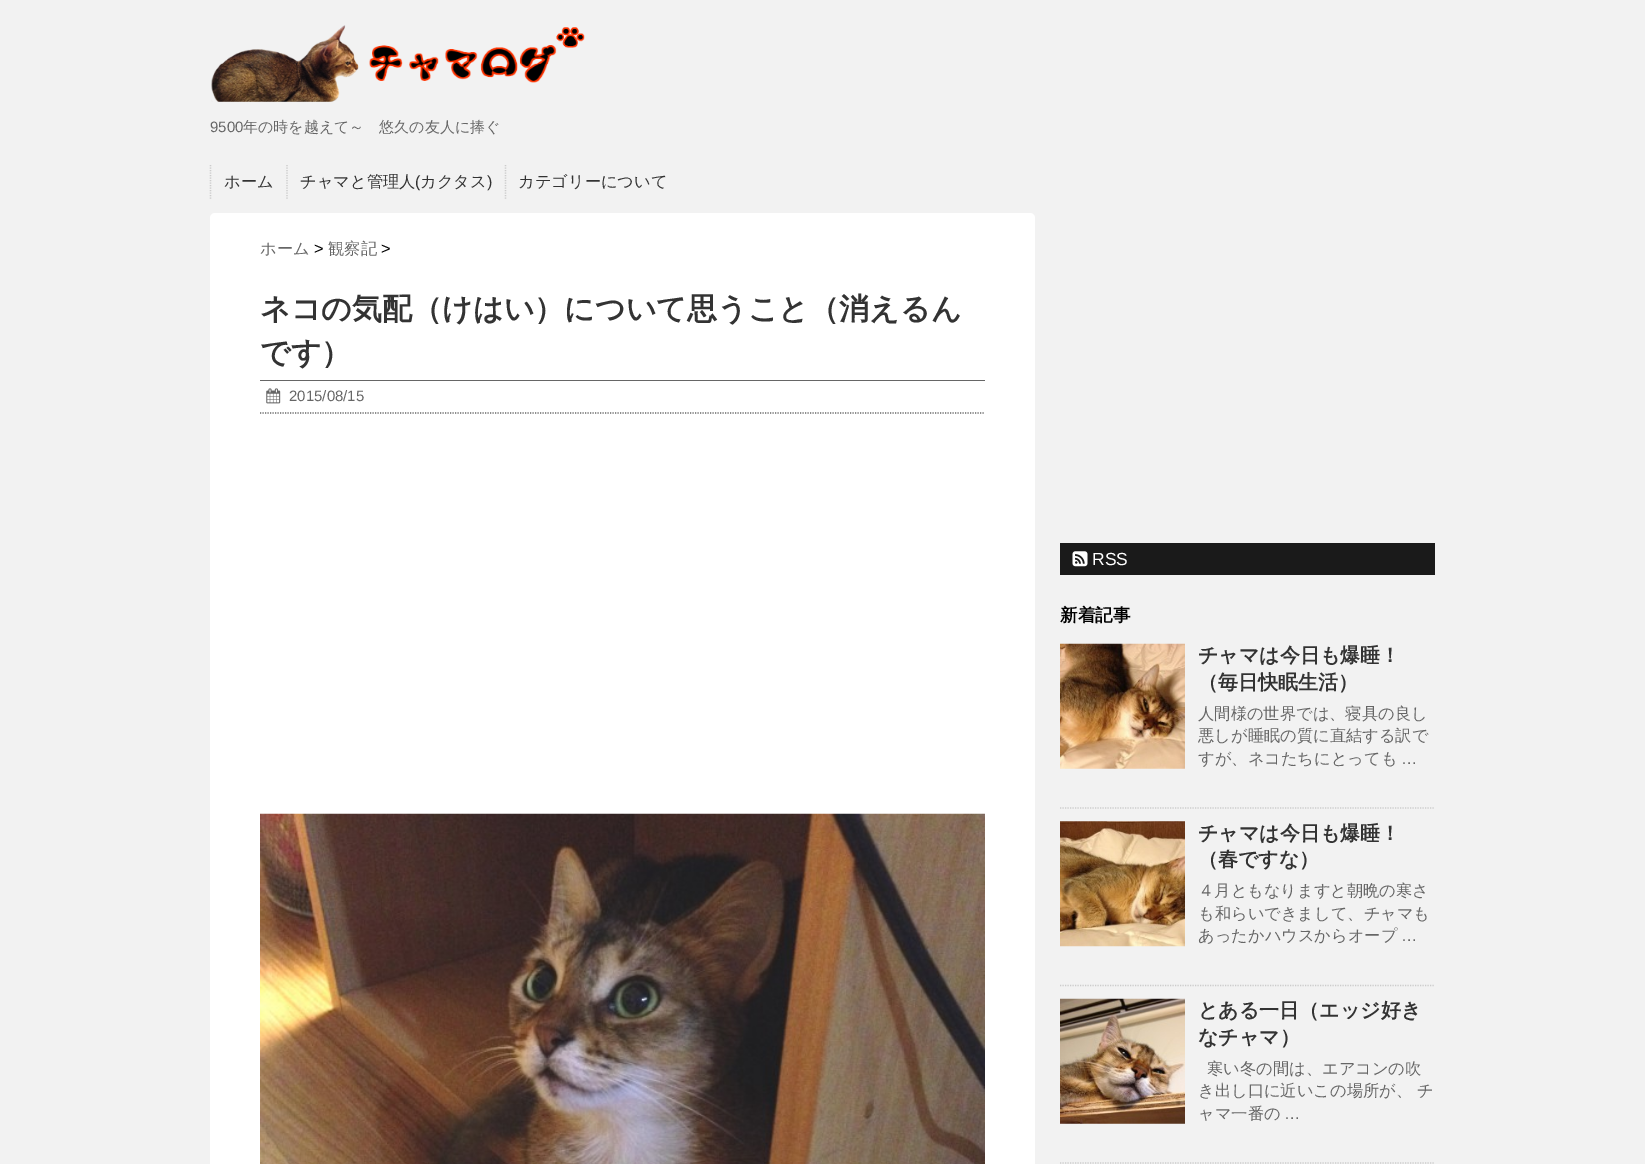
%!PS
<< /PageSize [1645 1164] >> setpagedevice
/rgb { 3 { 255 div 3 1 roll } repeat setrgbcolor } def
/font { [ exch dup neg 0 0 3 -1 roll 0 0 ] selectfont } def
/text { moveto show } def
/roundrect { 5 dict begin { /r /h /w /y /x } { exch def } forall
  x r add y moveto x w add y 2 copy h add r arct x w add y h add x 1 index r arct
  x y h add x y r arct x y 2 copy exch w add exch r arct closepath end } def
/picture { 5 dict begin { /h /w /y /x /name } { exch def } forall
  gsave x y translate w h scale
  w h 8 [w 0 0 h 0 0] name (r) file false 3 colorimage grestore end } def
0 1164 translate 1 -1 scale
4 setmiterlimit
242 242 242 rgb
0 0 1645 1164 rectfill
(img_01.rgb) 211 25 374 77 picture
204 204 204 rgb
1.2 setlinewidth
[1.25 1.25] 0 setdash
210.5 165 moveto 0 35 rlineto stroke
287 165 moveto 0 35 rlineto stroke
505.5 165 moveto 0 35 rlineto stroke
255 255 255 rgb
210 213 825 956 5 roundrect fill
102 102 102 rgb
260 380 725 1 rectfill
260 413 moveto 725 0 rlineto stroke
(img_02.rgb) 266 388 15 16 picture
(img_03.rgb) 260 813 725 351 picture
26 26 26 rgb
1060 543 375 32 rectfill
(img_04.rgb) 1072 551 16 16 picture
204 204 204 rgb
1060 808 moveto 375 0 rlineto stroke
(img_05.rgb) 1060 643 125 126 picture
1060 985.5 moveto 375 0 rlineto stroke
(img_06.rgb) 1060 821 125 126 picture
1060 1163 moveto 375 0 rlineto stroke
(img_07.rgb) 1060 998 125 126 picture
/LiberationSans-Regular 15 font
102 102 102 rgb
(9500) 210 132 text
/WenQuanYiZenHei-Medium 15 font
(年の時を越えて～　悠久の友人に捧ぐ) 243 132 text
/WenQuanYiZenHei-Medium 16.25 font
51 51 51 rgb
(ホーム) 224 187 text
(チャマと管理人) 300 187 text
/LiberationSans-Regular 16.25 font
(\() 415 187 text
/WenQuanYiZenHei-Medium 16.25 font
(カクタス) 420 187 text
/LiberationSans-Regular 16.25 font
(\)) 487 187 text
/WenQuanYiZenHei-Medium 16.25 font
(カテゴリーについて) 518 187 text
102 102 102 rgb
(ホーム) 260 254 text
/LiberationSans-Regular 16.25 font
0 0 0 rgb
(>) 314 254 text
/WenQuanYiZenHei-Medium 16.25 font
102 102 102 rgb
(観察記) 328 254 text
/LiberationSans-Regular 16.25 font
0 0 0 rgb
(>) 381 254 text
/WenQuanYiZenHei-Bold 30 font
51 51 51 rgb
(ネコの気配（けはい）について思うこと（消えるん) 260 319 text
(です）) 260 363 text
/LiberationSans-Regular 15 font
102 102 102 rgb
(2015/08/15) 289 401 text
/LiberationSans-Regular 17.5 font
255 255 255 rgb
(RSS) 1092 565 text
/WenQuanYiZenHei-Bold 17.5 font
0 0 0 rgb
(新着記事) 1060 621 text
/WenQuanYiZenHei-Bold 20 font
51 51 51 rgb
(チャマは今日も爆睡！) 1198 662 text
(（毎日快眠生活）) 1198 689 text
/WenQuanYiZenHei-Medium 16.25 font
102 102 102 rgb
(人間様の世界では、寝具の良し) 1198 719 text
(悪しが睡眠の質に直結する訳で) 1198 741 text
(すが、ネコたちにとっても) 1198 764 text
/LiberationSans-Regular 16.25 font
(…) 1401 764 text
/WenQuanYiZenHei-Bold 20 font
51 51 51 rgb
(チャマは今日も爆睡！) 1198 840 text
(（春ですな）) 1198 866 text
/WenQuanYiZenHei-Medium 16.25 font
102 102 102 rgb
(４月ともなりますと朝晩の寒さ) 1198 896 text
(も和らいできまして、チャマも) 1198 919 text
(あったかハウスからオープ) 1198 941 text
/LiberationSans-Regular 16.25 font
(…) 1401 941 text
/WenQuanYiZenHei-Bold 20 font
51 51 51 rgb
(とある一日（エッジ好き) 1198 1017 text
(なチャマ）) 1198 1044 text
/WenQuanYiZenHei-Medium 16.25 font
102 102 102 rgb
(寒い冬の間は、エアコンの吹) 1207 1074 text
(き出し口に近いこの場所が、 チ) 1198 1096 text
(ャマ一番の) 1198 1119 text
/LiberationSans-Regular 16.25 font
(…) 1284 1119 text
showpage
